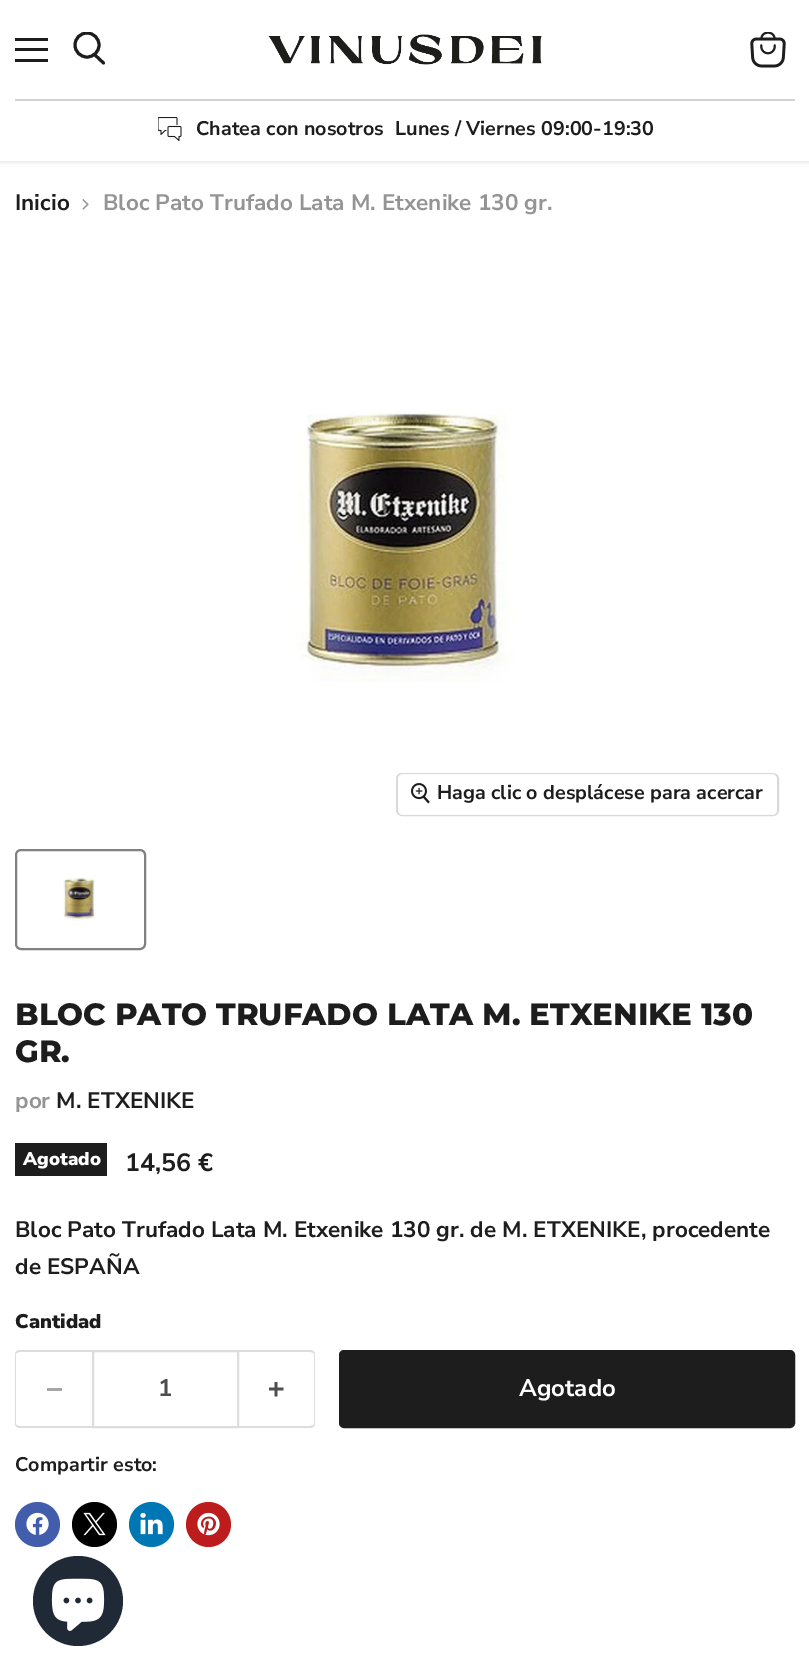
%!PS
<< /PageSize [809 1676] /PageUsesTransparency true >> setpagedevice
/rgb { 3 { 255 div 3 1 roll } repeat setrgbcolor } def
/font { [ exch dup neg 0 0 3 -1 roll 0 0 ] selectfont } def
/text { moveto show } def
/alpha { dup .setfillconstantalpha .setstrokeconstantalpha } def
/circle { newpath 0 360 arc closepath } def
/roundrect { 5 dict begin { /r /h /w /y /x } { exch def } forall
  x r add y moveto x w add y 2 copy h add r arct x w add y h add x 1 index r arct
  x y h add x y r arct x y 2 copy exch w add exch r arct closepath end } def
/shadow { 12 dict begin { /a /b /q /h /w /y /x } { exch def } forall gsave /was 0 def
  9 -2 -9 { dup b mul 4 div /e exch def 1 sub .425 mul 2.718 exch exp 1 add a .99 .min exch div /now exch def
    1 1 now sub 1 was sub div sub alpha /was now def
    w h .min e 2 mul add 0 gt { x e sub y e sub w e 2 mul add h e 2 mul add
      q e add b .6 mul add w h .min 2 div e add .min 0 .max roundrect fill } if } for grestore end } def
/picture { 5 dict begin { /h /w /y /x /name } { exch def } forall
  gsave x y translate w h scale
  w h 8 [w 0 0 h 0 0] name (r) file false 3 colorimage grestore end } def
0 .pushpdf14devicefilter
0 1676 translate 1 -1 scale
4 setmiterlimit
255 255 255 rgb
0 0 809 1676 rectfill
128 128 128 rgb
0 2 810 160 0 3 0.25 shadow
255 255 255 rgb
0 0 809 161 rectfill
29 29 29 rgb
15 38 33 3 rectfill
15 48 33 3 rectfill
15 59 33 3 rectfill
3 setlinewidth
1 setlinecap
103.5 63 moveto -8.5 -8 rlineto stroke
gsave
72 32 35 36 rectclip
0 setlinecap
87 45 12 circle stroke
grestore
(img_01.rgb) 750 32 36 36 picture
(img_02.rgb) 268 34 274 31 picture
210 210 210 rgb
15 99 780 2 rectfill
(img_03.rgb) 158 117 24 24 picture
(img_04.rgb) 82 198 7 12 picture
(img_05.rgb) 296 406 219 276 picture
217 217 217 rgb
2 setlinewidth
0 setlinecap
397 774 381 41 5 roundrect stroke
0.9 alpha
255 255 255 rgb
398 774 379 41 5 roundrect fill
1 alpha
(img_06.rgb) 411 783 19 21 picture
129 129 129 rgb
16 850 129 99 5 roundrect stroke
(img_07.rgb) 63 875 33 46 picture
29 29 29 rgb
15 1143 92 33 rectfill
221 221 221 rgb
20 1350 moveto 72 0 rlineto 0 78 rlineto -72 0 rlineto -3 0 -5 -2 -5 -4 rcurveto 0 -70 rlineto 0 -2 2 -4 5 -4 rcurveto closepath 20 1352 moveto 72 0 rlineto 0 74 rlineto -72 0 rlineto -2 0 -4 -1 -4 -2 rcurveto 0 -70 rlineto 0 -1 2 -2 4 -2 rcurveto closepath eofill
166 166 166 rgb
47 1388 15 3 rectfill
221 221 221 rgb
93 1351 145 76 rectstroke
238 1350 moveto 72 0 rlineto 3 0 5 2 5 4 rcurveto 0 70 rlineto 0 2 -2 4 -5 4 rcurveto -72 0 rlineto closepath 238 1352 moveto 72 0 rlineto 2 0 4 1 4 2 rcurveto 0 70 rlineto 0 1 -2 2 -4 2 rcurveto -72 0 rlineto closepath eofill
(img_08.rgb) 269 1382 15 15 picture
29 29 29 rgb
340 1351 454 76 4 roundrect gsave fill grestore
stroke
66 93 171 rgb
37.5 1524.5 22.5 circle fill
(img_09.rgb) 26 1512 23 23 picture
0 0 0 rgb
94.5 1524.5 22.5 circle fill
(img_10.rgb) 83 1512 23 24 picture
0 119 181 rgb
151.5 1524.5 22.5 circle fill
(img_11.rgb) 140 1512 23 23 picture
189 28 28 rgb
208.5 1524.5 22.5 circle fill
(img_12.rgb) 197 1512 23 24 picture
32 42 54 rgb
78 1601 45 circle fill
(img_13.rgb) 51 1578 54 53 picture
/NunitoSans-Bold 19.75 font
29 29 29 rgb
(Chatea con nosotros) 196 135 text
(Lunes / Viernes 09:00-19:30) 395 135 text
/NunitoSans-Bold 22.5 font
(Inicio) 15 210 text
148 148 148 rgb
(Bloc Pato Trufado Lata M. Etxenike 130 gr.) 103 210 text
/NunitoSans-Bold 19.75 font
29 29 29 rgb
(Haga clic o desplácese para acercar) 437 799 text
/Montserrat-ExtraBold 30.75 font
(BLOC PATO TRUFADO LATA M. ETXENIKE 130) 15 1025 text
(GR.) 15 1062 text
/NunitoSans-Bold 22.5 font
148 148 148 rgb
(por) 15 1108 text
29 29 29 rgb
(M. ETXENIKE) 56 1108 text
/NunitoSans-Black 18.5 font
255 255 255 rgb
(Agotado) 23 1165 text
/NunitoSans-Bold 25 font
29 29 29 rgb
(14,56 €) 125 1171 text
/NunitoSans-Bold 22.5 font
(Bloc Pato Trufado Lata M. Etxenike 130 gr. de M. ETXENIKE, procedente) 15 1237 text
(de ESPAÑA) 15 1274 text
/NunitoSans-Black 19.75 font
(Cantidad) 15 1328 text
/NunitoSans-Bold 24 font
77 77 77 rgb
(1) 158 1396 text
255 255 255 rgb
(Agotado) 519 1396 text
/NunitoSans-Bold 19.75 font
29 29 29 rgb
(Compartir esto:) 15 1471 text
.poppdf14devicefilter showpage
